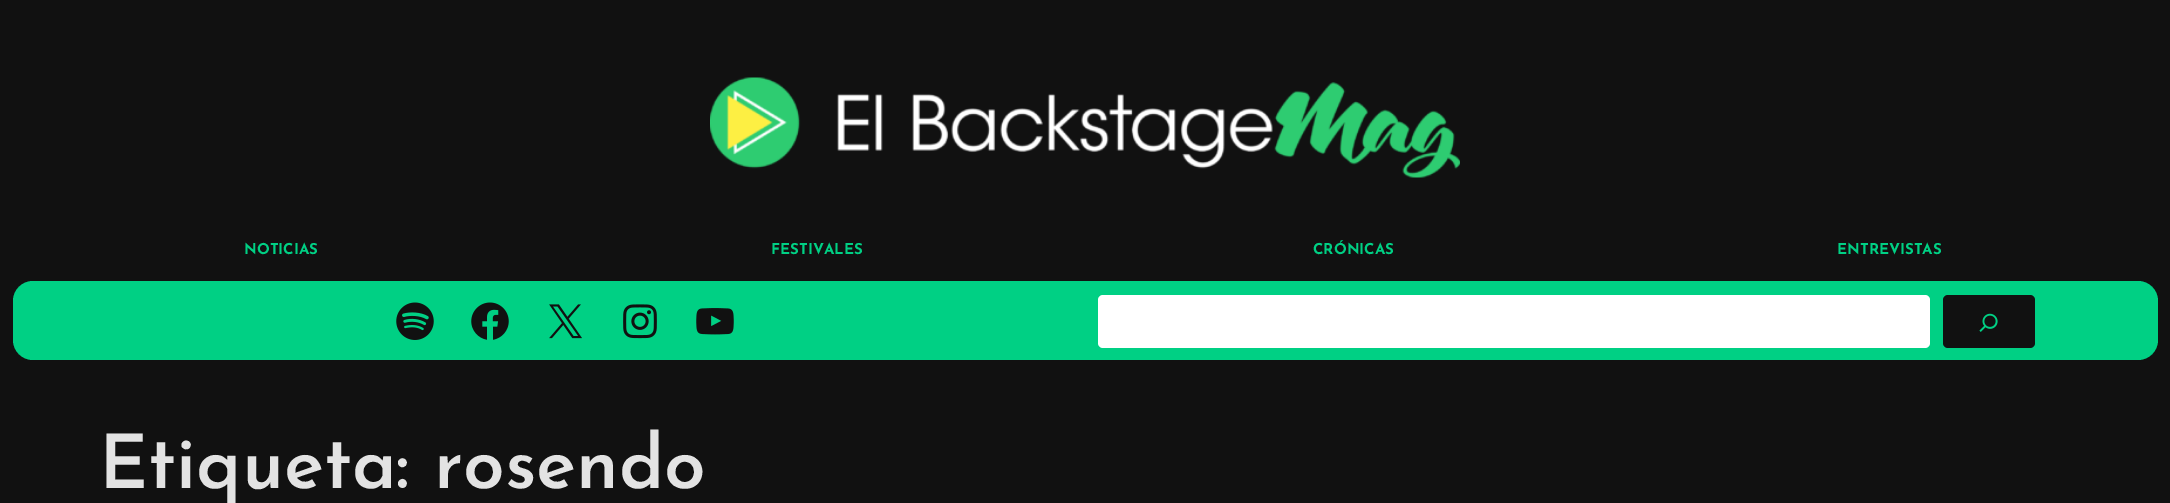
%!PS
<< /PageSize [2170 503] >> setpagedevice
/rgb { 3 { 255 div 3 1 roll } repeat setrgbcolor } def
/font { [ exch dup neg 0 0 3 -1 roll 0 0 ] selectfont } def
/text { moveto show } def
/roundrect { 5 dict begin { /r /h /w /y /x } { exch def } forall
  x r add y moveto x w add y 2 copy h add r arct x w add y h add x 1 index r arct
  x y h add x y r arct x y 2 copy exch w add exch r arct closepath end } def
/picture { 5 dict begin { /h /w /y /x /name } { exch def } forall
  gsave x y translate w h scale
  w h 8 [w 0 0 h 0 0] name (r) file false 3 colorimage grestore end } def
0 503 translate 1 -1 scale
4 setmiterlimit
17 17 17 rgb
0 0 2170 503 rectfill
(img_01.rgb) 710 77 750 101 picture
0 208 132 rgb
13 281 2145 79 20 roundrect fill
(img_02.rgb) 396 302 38 38 picture
(img_03.rgb) 471 302 38 38 picture
(img_04.rgb) 549 304 33 35 picture
(img_05.rgb) 623 304 34 35 picture
(img_06.rgb) 696 308 38 27 picture
255 255 255 rgb
1098 295 832 53 5 roundrect fill
17 17 17 rgb
1943 295 92 53 5 roundrect fill
(img_07.rgb) 1979 313 19 19 picture
/JosefinSans-Bold 15 font
0 208 132 rgb
(NOTICIAS) 244 254 text
(FESTIVALES) 771 254 text
(CRÓNICAS) 1313 254 text
(ENTREVISTAS) 1837 254 text
/JosefinSans-SemiBold 75 font
227 227 227 rgb
(Etiqueta: rosendo) 99 488 text
showpage
